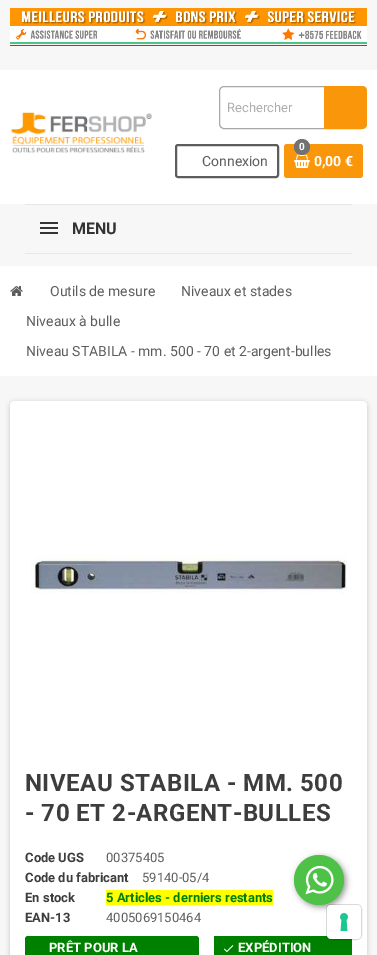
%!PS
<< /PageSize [377 955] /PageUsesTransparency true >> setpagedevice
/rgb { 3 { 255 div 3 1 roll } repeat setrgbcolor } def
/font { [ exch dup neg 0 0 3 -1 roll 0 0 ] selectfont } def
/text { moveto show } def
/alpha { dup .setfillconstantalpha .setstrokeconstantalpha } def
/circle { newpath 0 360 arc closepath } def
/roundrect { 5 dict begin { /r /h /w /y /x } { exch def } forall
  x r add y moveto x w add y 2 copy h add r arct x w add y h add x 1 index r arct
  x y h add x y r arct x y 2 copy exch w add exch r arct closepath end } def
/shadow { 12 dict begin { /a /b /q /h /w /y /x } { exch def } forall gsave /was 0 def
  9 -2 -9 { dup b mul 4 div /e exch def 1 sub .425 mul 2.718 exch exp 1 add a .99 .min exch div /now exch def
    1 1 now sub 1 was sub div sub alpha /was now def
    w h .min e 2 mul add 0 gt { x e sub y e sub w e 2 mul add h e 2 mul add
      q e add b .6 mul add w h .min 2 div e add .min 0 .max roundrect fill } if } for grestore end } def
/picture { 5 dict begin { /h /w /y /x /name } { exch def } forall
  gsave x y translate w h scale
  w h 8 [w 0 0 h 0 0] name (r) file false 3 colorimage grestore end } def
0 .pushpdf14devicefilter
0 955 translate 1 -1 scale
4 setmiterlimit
255 255 255 rgb
0 0 377 955 rectfill
247 247 247 rgb
0 0 377 70 rectfill
(img_01.rgb) 10 8 357 38 picture
(img_02.rgb) 11 112 141 41 picture
168 168 168 rgb
219.5 86.5 146 42 4.5 roundrect stroke
249 150 9 rgb
324 86 moveto 38 0 rlineto 3 0 5 2 5 5 rcurveto 0 33 rlineto 0 3 -2 5 -5 5 rcurveto -38 0 rlineto closepath fill
93 93 93 rgb
2 setlinewidth
176 145 102 32 2 roundrect stroke
249 150 9 rgb
284 144 79 34 3 roundrect fill
(img_03.rgb) 294 154 16 14 picture
113 114 116 rgb
302 147 8 circle fill
247 247 247 rgb
0 204 377 62 rectfill
231 231 231 rgb
25 204 327 1 rectfill
25 253 327 1 rectfill
51 51 51 rgb
40 222 18 2 rectfill
40 227 18 2 rectfill
40 232 18 2 rectfill
247 247 247 rgb
0 376 377 579 rectfill
(img_04.rgb) 10 286 13 10 picture
0 0 0 rgb
10 402 357 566 5 2.5 0.2 shadow
255 255 255 rgb
10 401 357 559 5 roundrect fill
(img_05.rgb) 31 554 316 40 picture
255 255 0 rgb
106 890 167 15 rectfill
0 128 0 rgb
25 936 174 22 3 roundrect fill
214 936 138 19 rectfill
(img_06.rgb) 223 945 11 8 picture
0 0 0 rgb
296 857 50 50 25 3 0.4 shadow
77 194 71 rgb
319 880 25 circle fill
(img_07.rgb) 305 865 29 30 picture
0.15 alpha
0 0 0 rgb
1 setlinewidth
326.5 904.5 35 35 4.5 roundrect stroke
1 alpha
255 255 255 rgb
327 905 34 34 4 roundrect fill
(img_08.rgb) 340 913 8 18 picture
/Roboto-Regular 13 font
174 174 174 rgb
(Rechercher) 227 112 text
/Roboto-Regular 14 font
93 93 93 rgb
(Connexion) 202 166 text
/Roboto-Bold 10 font
255 255 255 rgb
(0) 299 150 text
/Roboto-Bold 14 font
(0,00 €) 314 166 text
/Roboto-Bold 16 font
51 51 51 rgb
(MENU) 72 234 text
/Roboto-Regular 14 font
93 93 93 rgb
(Outils de mesure) 50 296 text
(Niveaux et stades) 181 296 text
(Niveaux à bulle) 26 326 text
(Niveau STABILA - mm. 500 - 70 et 2-argent-bulles) 26 356 text
/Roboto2-Bold 24 font
61 61 61 rgb
25 791 moveto 0.5 0 (NIVEAU STABILA - MM. 500) ashow
25 821 moveto 0.5 0 (- 70 ET 2-ARGENT-BULLES) ashow
/Roboto-Bold 13 font
(Code UGS) 25 862 text
/Roboto-Regular 13 font
93 93 93 rgb
(00375405) 106 862 text
/Roboto-Bold 13 font
61 61 61 rgb
(Code du fabricant) 25 882 text
/Roboto-Regular 13 font
93 93 93 rgb
(59140-05/4) 142 882 text
/Roboto-Bold 13 font
61 61 61 rgb
(En stock) 25 902 text
0 128 0 rgb
(5 Articles - derniers restants) 106 902 text
61 61 61 rgb
(EAN-13) 25 922 text
/Roboto-Regular 13 font
93 93 93 rgb
(4005069150464) 106 922 text
/Roboto-Bold 13 font
255 255 255 rgb
(PRÊT POUR LA) 49 952 text
(EXPÉDITION) 238 952 text
.poppdf14devicefilter showpage
